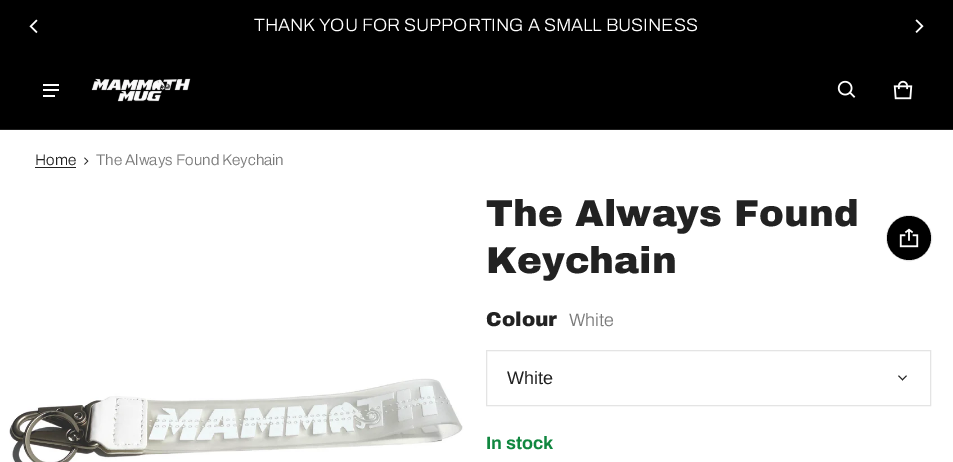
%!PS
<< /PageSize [953 462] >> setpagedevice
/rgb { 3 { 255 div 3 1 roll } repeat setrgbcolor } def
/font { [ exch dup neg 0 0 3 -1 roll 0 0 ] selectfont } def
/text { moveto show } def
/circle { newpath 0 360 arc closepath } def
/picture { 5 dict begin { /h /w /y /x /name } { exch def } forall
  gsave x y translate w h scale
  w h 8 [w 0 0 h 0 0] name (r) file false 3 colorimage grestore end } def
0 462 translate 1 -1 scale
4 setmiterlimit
255 255 255 rgb
0 0 953 462 rectfill
0 0 0 rgb
0 0 953 129 rectfill
(img_01.rgb) 29 19 9 15 picture
(img_02.rgb) 915 19 9 14 picture
31 31 31 rgb
0 129 953 1 rectfill
255 255 255 rgb
43 84 16 2 rectfill
43 89 16 2 rectfill
43 95 12 2 rectfill
(img_03.rgb) 91 78 100 24 picture
(img_04.rgb) 837 80 19 18 picture
(img_05.rgb) 893 80 20 20 picture
34 34 34 rgb
35 167 41 1 rectfill
(img_06.rgb) 84 157 5 8 picture
(img_07.rgb) 0 191 468 271 picture
228 228 228 rgb
909 238 22.5 circle stroke
0 0 0 rgb
909 238 22 circle fill
(img_08.rgb) 899 228 20 20 picture
228 228 228 rgb
486.5 350.5 444 55 rectstroke
34 34 34 rgb
899 375.5 moveto 4 4 rlineto -0.5 1 rlineto -4.5 -4.5 rlineto closepath fill
902 379.5 moveto 4 -4 rlineto 1 0.5 rlineto -4.5 4.5 rlineto closepath fill
/Archivo-Light 18 font
255 255 255 rgb
(THANK YOU FOR SUPPORTING A SMALL BUSINESS) 254 31 text
/Archivo-Light 15.25 font
34 34 34 rgb
(Home) 35 165 text
122 122 122 rgb
(The Always Found Keychain) 96 165 text
/ArchivoBlack-Regular 37.25 font
34 34 34 rgb
(The Always Found) 486 226 text
(Keychain) 486 273 text
/ArchivoBlack-Regular 20 font
(Colour) 486 326 text
/Archivo-Light 18 font
122 122 122 rgb
(White) 569 326 text
/LiberationSans-Regular 18 font
34 34 34 rgb
(White) 507 384 text
/Archivo-Bold 18 font
16 135 63 rgb
(In stock) 486 449 text
showpage
